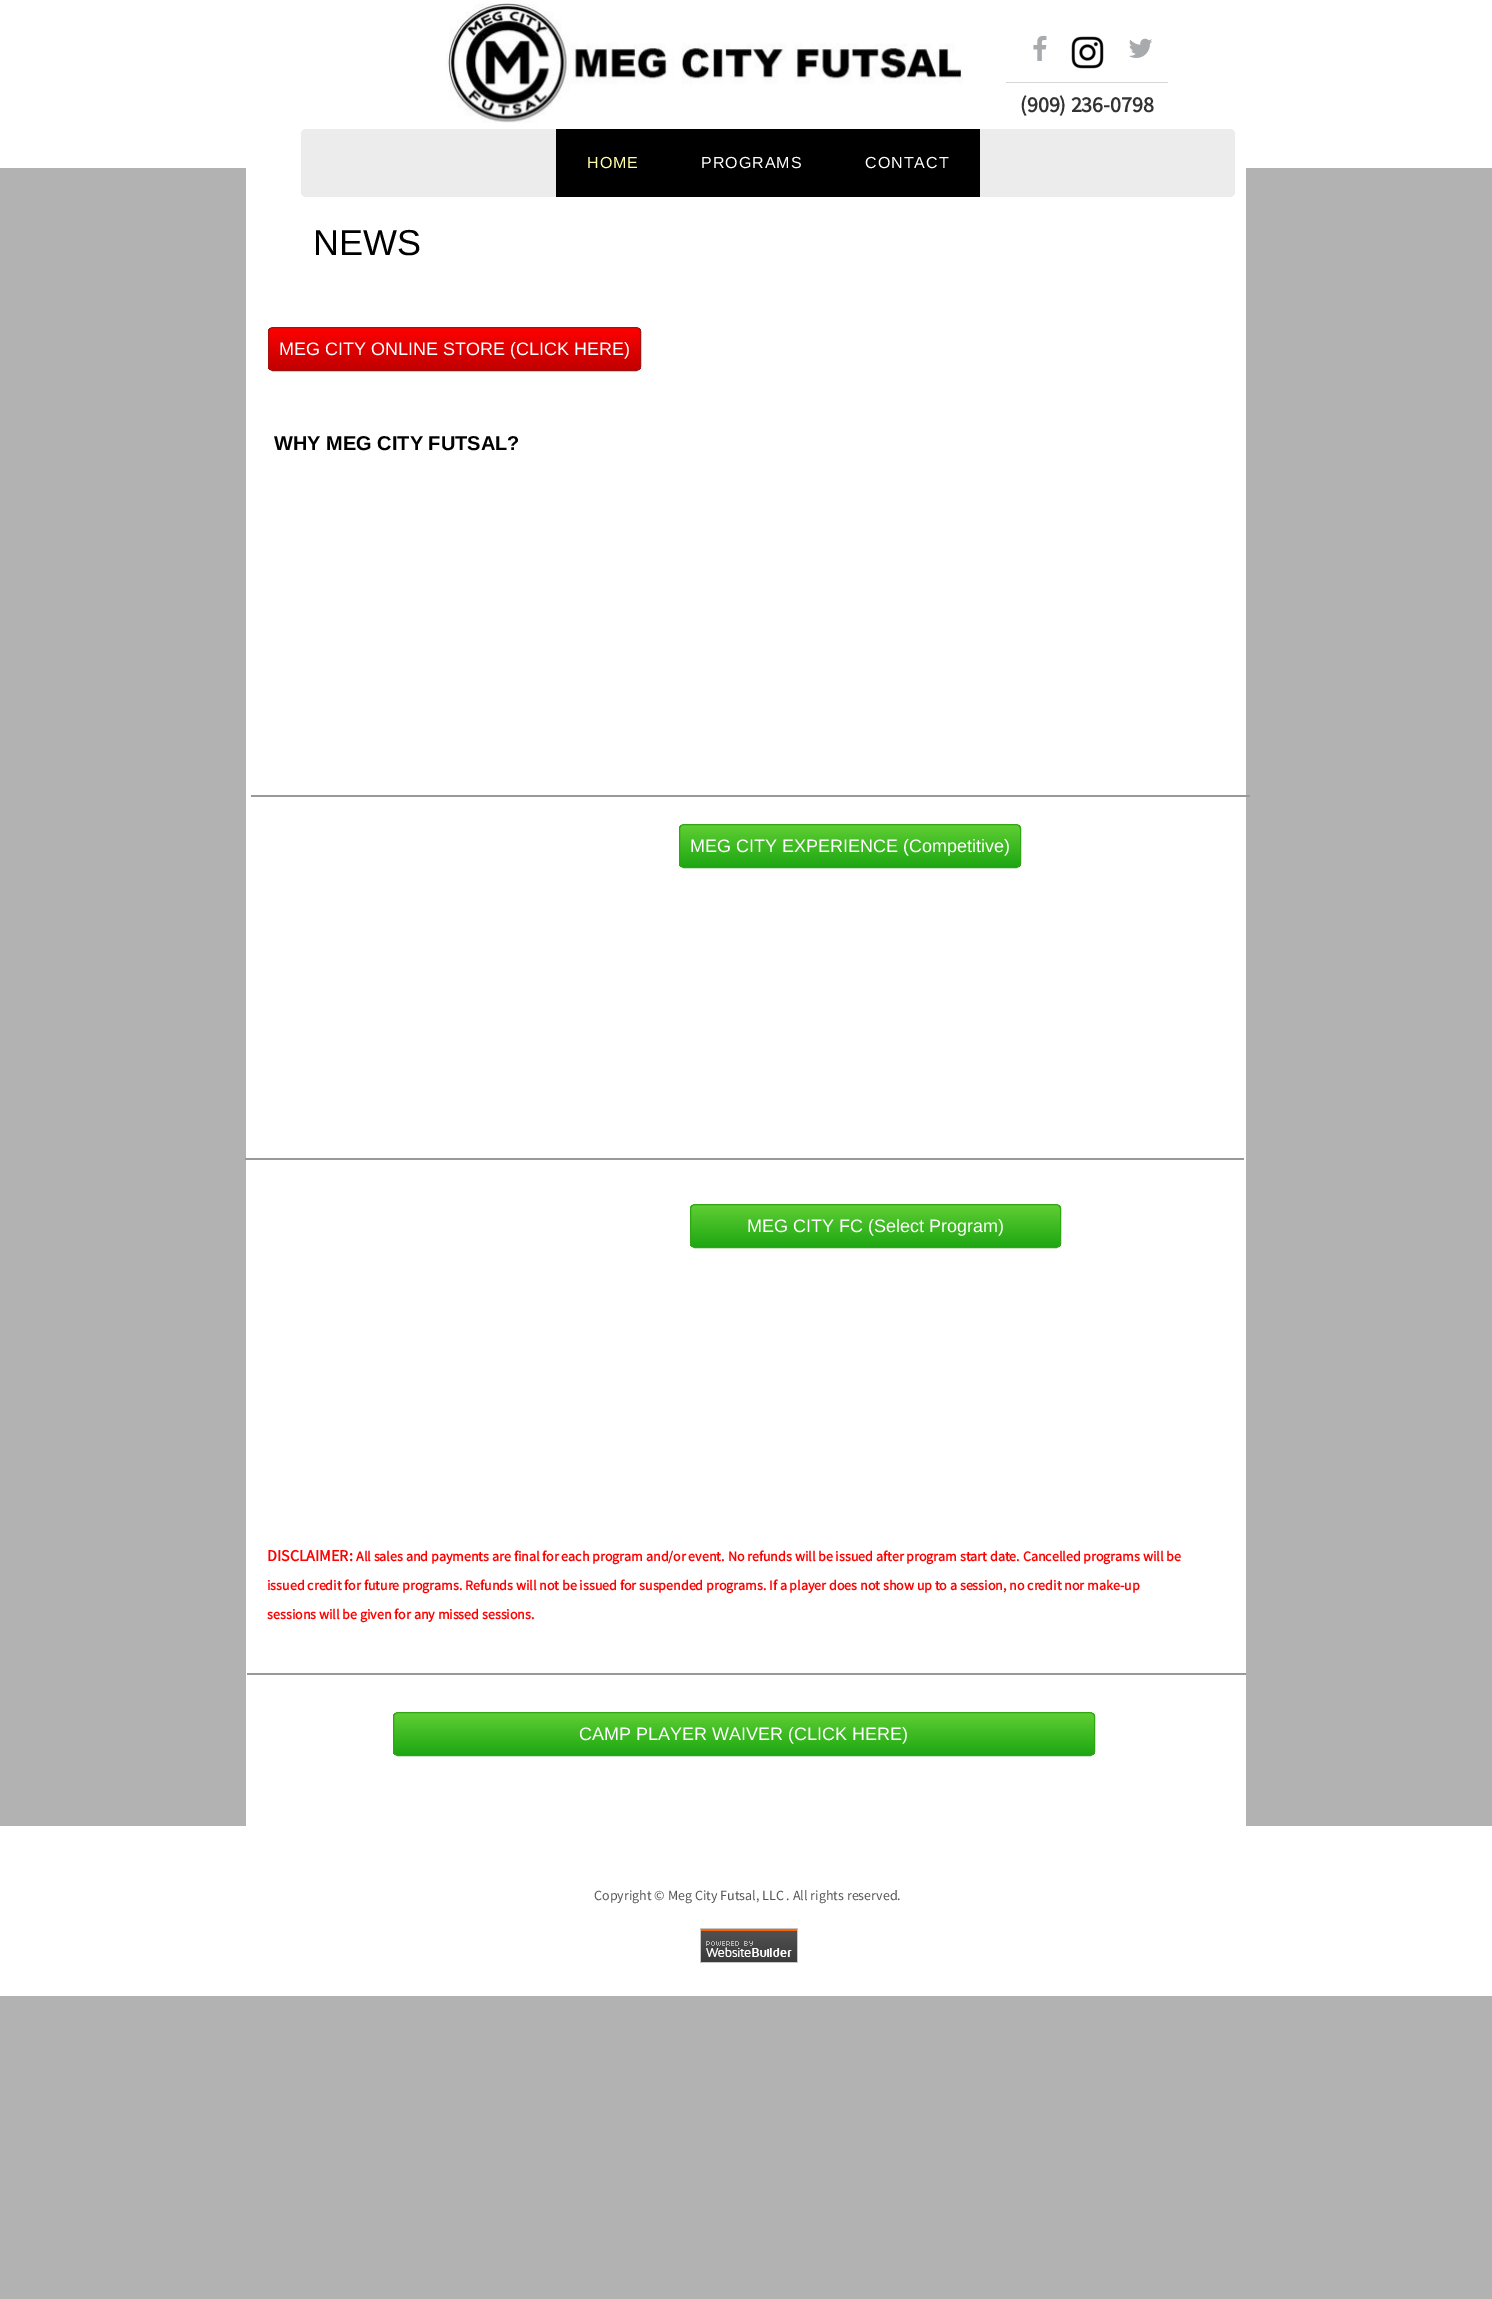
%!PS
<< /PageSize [1492 2299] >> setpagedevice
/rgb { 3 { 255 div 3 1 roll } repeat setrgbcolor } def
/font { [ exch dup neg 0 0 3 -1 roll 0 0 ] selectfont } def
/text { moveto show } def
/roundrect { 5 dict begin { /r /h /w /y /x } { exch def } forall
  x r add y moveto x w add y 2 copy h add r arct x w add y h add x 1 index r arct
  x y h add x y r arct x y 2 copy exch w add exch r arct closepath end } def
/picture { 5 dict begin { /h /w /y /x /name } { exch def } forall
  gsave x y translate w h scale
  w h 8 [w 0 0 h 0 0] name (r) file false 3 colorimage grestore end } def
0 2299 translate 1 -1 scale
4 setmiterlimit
178 178 178 rgb
0 0 1492 2299 rectfill
255 255 255 rgb
246 168 1000 1658 rectfill
0 0 1492 168 rectfill
(img_01.rgb) 446 3 517 120 picture
(img_02.rgb) 1033 35 14 26 picture
(img_03.rgb) 1071 36 33 33 picture
(img_04.rgb) 1129 38 24 20 picture
214 215 216 rgb
1006 82 162 1 rectfill
236 236 236 rgb
301 129 934 68 5 roundrect fill
0 0 0 rgb
556 129 424 68 rectfill
gsave
268 327 373 44 5 roundrect clip newpath
gsave 268 328 moveto 373 0 rlineto 0 42 rlineto -373 0 rlineto closepath clip newpath
<< /ShadingType 2 /ColorSpace /DeviceRGB /Coords [455 328 455 370] /Extend [true true] /Function << /FunctionType 2 /Domain [0 1] /C0 [1 0 0] /C1 [0.753 0 0] /N 1 >> >> shfill grestore
grestore
166 18 18 rgb
268.5 327.5 372 43 4.5 roundrect stroke
153 153 153 rgb
251 795 999 2 rectfill
gsave
679 824 342 44 5 roundrect clip newpath
gsave 679 825 moveto 342 0 rlineto 0 42 rlineto -342 0 rlineto closepath clip newpath
<< /ShadingType 2 /ColorSpace /DeviceRGB /Coords [850 825 850 867] /Extend [true true] /Function << /FunctionType 2 /Domain [0 1] /C0 [0.373 0.812 0.204] /C1 [0.118 0.651 0.071] /N 1 >> >> shfill grestore
grestore
48 166 18 rgb
679.5 824.5 341 43 4.5 roundrect stroke
153 153 153 rgb
245 1158 999 2 rectfill
gsave
690 1204 371 44 5 roundrect clip newpath
gsave 690 1205 moveto 371 0 rlineto 0 42 rlineto -371 0 rlineto closepath clip newpath
<< /ShadingType 2 /ColorSpace /DeviceRGB /Coords [876 1205 876 1247] /Extend [true true] /Function << /FunctionType 2 /Domain [0 1] /C0 [0.373 0.812 0.204] /C1 [0.118 0.651 0.071] /N 1 >> >> shfill grestore
grestore
48 166 18 rgb
690.5 1204.5 370 43 4.5 roundrect stroke
153 153 153 rgb
247 1673 999 2 rectfill
gsave
393 1712 702 44 5 roundrect clip newpath
gsave 393 1713 moveto 702 0 rlineto 0 42 rlineto -702 0 rlineto closepath clip newpath
<< /ShadingType 2 /ColorSpace /DeviceRGB /Coords [744 1713 744 1755] /Extend [true true] /Function << /FunctionType 2 /Domain [0 1] /C0 [0.373 0.812 0.204] /C1 [0.118 0.651 0.071] /N 1 >> >> shfill grestore
grestore
48 166 18 rgb
393.5 1712.5 701 43 4.5 roundrect stroke
255 255 255 rgb
0 1826 1492 170 rectfill
(img_05.rgb) 700 1928 98 35 picture
/SourceSansPro-Bold 22 font
51 51 51 rgb
(\(909\) 236-0798) 1020 112 text
/LiberationSans-Regular 16 font
255 255 170 rgb
587 168 moveto 1 0 (HOME) ashow
255 255 255 rgb
701 168 moveto 1 0 (PROGRAMS) ashow
865 168 moveto 1 0 (CONTACT) ashow
/LiberationSans-Regular 36 font
0 0 0 rgb
(NEWS) 313 255 text
/LiberationSans-Regular 18 font
255 255 255 rgb
(MEG CITY ONLINE STORE \(CLICK HERE\)) 279 355 text
/LiberationSans-Bold 20 font
0 0 0 rgb
(WHY MEG CITY FUTSAL?) 274 450 text
/LiberationSans-Regular 18 font
255 255 255 rgb
(MEG CITY EXPERIENCE \(Competitive\)) 690 852 text
(MEG CITY FC \(Select Program\)) 747 1232 text
/SourceSansPro-Bold 16 font
255 0 0 rgb
(DISCLAIMER:) 267 1561 text
/SourceSansPro-Bold 14 font
(All sales and payments are final for each program and/or event. No refunds will be issued after program start date. Cancelled programs will be) 356 1561 text
(issued credit for future programs. Refunds will not be issued for suspended programs. If a player does not show up to a session, no credit nor make-up) 267 1590 text
(sessions will be given for any missed sessions.) 267 1619 text
/LiberationSans-Regular 18 font
255 255 255 rgb
(CAMP PLAYER WAIVER \(CLICK HERE\)) 579 1740 text
/SourceSansPro-Regular 14 font
85 85 85 rgb
(Copyright © Meg City Futsal, LLC . All rights reserved.) 594 1900 text
showpage
